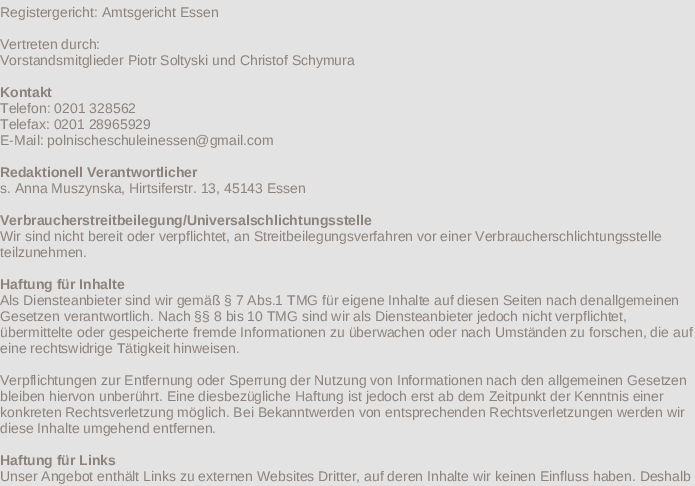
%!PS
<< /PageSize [695 486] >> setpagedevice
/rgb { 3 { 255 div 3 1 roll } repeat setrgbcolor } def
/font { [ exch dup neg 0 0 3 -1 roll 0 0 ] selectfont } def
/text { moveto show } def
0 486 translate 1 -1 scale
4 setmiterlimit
227 227 227 rgb
0 0 695 486 rectfill
/LiberationSans-Regular 14 font
142 131 124 rgb
(Registergericht: Amtsgericht Essen) 0 17 text
(Vertreten durch:) 0 49 text
(Vorstandsmitglieder Piotr Soltyski und Christof Schymura) 0 65 text
/LiberationSans-Bold 14 font
(Kontakt) 0 97 text
/LiberationSans-Regular 14 font
(Telefon: 0201 328562) 0 113 text
(Telefax: 0201 28965929) 0 129 text
(E-Mail: polnischeschuleinessen@gmail.com) 0 145 text
/LiberationSans-Bold 14 font
(Redaktionell Verantwortlicher) 0 177 text
/LiberationSans-Regular 14 font
(s. Anna Muszynska, Hirtsiferstr. 13, 45143 Essen) 0 193 text
/LiberationSans-Bold 14 font
(Verbraucherstreitbeilegung/Universalschlichtungsstelle) 0 225 text
/LiberationSans-Regular 14 font
(Wir sind nicht bereit oder verpflichtet, an Streitbeilegungsverfahren vor einer Verbraucherschlichtungsstelle) 0 241 text
(teilzunehmen.) 0 257 text
/LiberationSans-Bold 14 font
(Haftung für Inhalte) 0 289 text
/LiberationSans-Regular 14 font
(Als Diensteanbieter sind wir gemäß § 7 Abs.1 TMG für eigene Inhalte auf diesen Seiten nach denallgemeinen) 0 305 text
(Gesetzen verantwortlich. Nach §§ 8 bis 10 TMG sind wir als Diensteanbieter jedoch nicht verpflichtet,) 0 321 text
(übermittelte oder gespeicherte fremde Informationen zu überwachen oder nach Umständen zu forschen, die auf) 0 337 text
(eine rechtswidrige Tätigkeit hinweisen.) 0 353 text
(Verpflichtungen zur Entfernung oder Sperrung der Nutzung von Informationen nach den allgemeinen Gesetzen) 0 385 text
(bleiben hiervon unberührt. Eine diesbezügliche Haftung ist jedoch erst ab dem Zeitpunkt der Kenntnis einer) 0 401 text
(konkreten Rechtsverletzung möglich. Bei Bekanntwerden von entsprechenden Rechtsverletzungen werden wir) 0 417 text
(diese Inhalte umgehend entfernen.) 0 433 text
/LiberationSans-Bold 14 font
(Haftung für Links) 0 465 text
/LiberationSans-Regular 14 font
(Unser Angebot enthält Links zu externen Websites Dritter, auf deren Inhalte wir keinen Einfluss haben. Deshalb) 0 481 text
showpage
